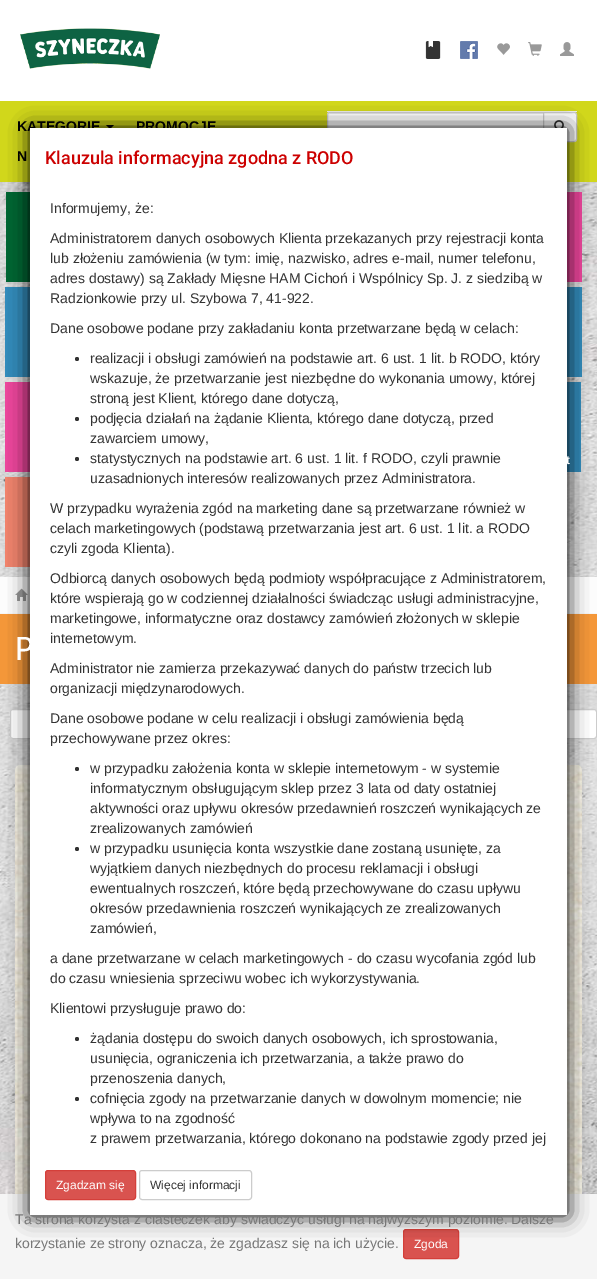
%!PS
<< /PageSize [597 1279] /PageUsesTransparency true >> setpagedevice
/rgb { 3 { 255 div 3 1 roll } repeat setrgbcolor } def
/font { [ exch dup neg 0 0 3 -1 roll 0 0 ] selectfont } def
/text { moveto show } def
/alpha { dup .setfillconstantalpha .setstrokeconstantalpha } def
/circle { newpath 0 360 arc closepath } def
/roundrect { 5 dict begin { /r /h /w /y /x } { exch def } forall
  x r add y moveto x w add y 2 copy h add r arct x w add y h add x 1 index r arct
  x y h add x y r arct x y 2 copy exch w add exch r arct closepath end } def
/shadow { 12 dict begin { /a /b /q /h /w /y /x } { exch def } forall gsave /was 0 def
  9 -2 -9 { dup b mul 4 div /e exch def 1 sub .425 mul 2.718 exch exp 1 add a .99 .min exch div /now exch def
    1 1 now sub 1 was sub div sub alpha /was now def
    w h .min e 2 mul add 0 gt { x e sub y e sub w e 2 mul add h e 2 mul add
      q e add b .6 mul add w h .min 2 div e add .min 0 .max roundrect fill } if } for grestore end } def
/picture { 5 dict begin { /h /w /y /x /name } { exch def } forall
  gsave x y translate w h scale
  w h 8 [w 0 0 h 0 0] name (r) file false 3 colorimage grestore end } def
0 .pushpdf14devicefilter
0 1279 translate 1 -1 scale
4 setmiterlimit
255 255 255 rgb
0 0 597 1279 rectfill
(img_01.rgb) 0 182 597 1012 picture
(img_02.rgb) 20 28 140 41 picture
(img_03.rgb) 425 41 16 18 picture
(img_04.rgb) 460 41 18 18 picture
(img_05.rgb) 497 43 13 12 picture
(img_06.rgb) 528 42 14 14 picture
(img_07.rgb) 560 42 14 14 picture
209 215 27 rgb
0 101 597 81 rectfill
0 0 0 rgb
106 125 moveto 8 0 rlineto -4 4 rlineto closepath fill
238 238 238 rgb
327 111 250 1 rectfill
255 255 255 rgb
330 112 moveto 214 0 rlineto 0 30 rlineto -214 0 rlineto -1.5 0 -3 -1.5 -3 -3 rcurveto 0 -24 rlineto 0 -1.5 1.5 -3 3 -3 rcurveto closepath fill
236 236 236 rgb
330 114 moveto 213 0 rlineto 0 -1 rlineto -213 0 rlineto -1 1 rlineto -1 2 rlineto 0 -1 1 -2 2 -2 rcurveto closepath fill
204 204 204 rgb
330 112.5 moveto 213.5 0 rlineto 0 29 rlineto -213.5 0 rlineto -1.5 0 -2.5 -1 -2.5 -2.5 rcurveto 0 -24 rlineto 0 -1.5 1 -2.5 2.5 -2.5 rcurveto closepath stroke
255 255 255 rgb
543.5 112.5 moveto 30.5 0 rlineto 1.5 0 2.5 1 2.5 2.5 rcurveto 0 24 rlineto 0 1.5 -1 2.5 -2.5 2.5 rcurveto -30.5 0 rlineto closepath gsave fill grestore
204 204 204 rgb
stroke
(img_08.rgb) 554 120 10 8 picture
0 102 51 rgb
6 192 24 90 rectfill
236 70 156 rgb
567 192 15 90 rectfill
51 139 187 rgb
5 287 25 90 rectfill
567 287 15 90 rectfill
236 70 156 rgb
5 382 25 90 rectfill
51 139 187 rgb
567 382 14 90 rectfill
240 131 108 rgb
5 477 25 90 rectfill
252 252 252 rgb
0 577 597 36 rectfill
246 246 246 rgb
0 613 597 1 rectfill
(img_09.rgb) 15 588 13 13 picture
244 151 57 rgb
0 614 597 70 rectfill
255 255 255 rgb
10.5 709.5 586 29 2.5 roundrect gsave fill grestore
204 204 204 rgb
stroke
(img_10.rgb) 15 765 567 429 picture
245 245 245 rgb
0 1194 597 85 rectfill
217 83 79 rgb
403.5 1229.5 55 29 2.5 roundrect gsave fill grestore
212 63 58 rgb
stroke
0 0 0 rgb
30 128 537 1087 0 10 1 shadow
/LiberationSans-Bold 14 font
(KATEGORIE) 17 131 text
(PROMOCJE) 136 131 text
(N) 17 161 text
/LiberationSans-Bold 12 font
255 255 255 rgb
(t) 566 464 text
/Carlito-Regular 36 font
(P) 15 660 text
/LiberationSans-Regular 14 font
119 119 119 rgb
(Ta strona korzysta z ciasteczek aby świadczyć usługi na najwyższym poziomie. Dalsze) 15 1224 text
255 255 255 rgb
30 128 537 1087 rectfill
204 204 204 rgb
139.5 1170.5 112 29 2.5 roundrect stroke
/LiberationSans-Regular 12 font
51 51 51 rgb
(Więcej informacji) 150 1189 text
217 83 79 rgb
45.5 1170.5 90 29 2.5 roundrect gsave fill grestore
212 63 58 rgb
stroke
255 255 255 rgb
(Zgadzam się) 56 1189 text
/Roboto-Medium 18 font
204 0 0 rgb
(Klauzula informacyjna zgodna z RODO) 45 164 text
/LiberationSans-Regular 14 font
51 51 51 rgb
(z prawem przetwarzania, którego dokonano na podstawie zgody przed jej) 90 1143 text
(wpływa to na zgodność) 90 1123 text
(cofnięcia zgody na przetwarzanie danych w dowolnym momencie; nie) 90 1103 text
77 1099 2 circle fill
(przenoszenia danych,) 90 1083 text
(usunięcia, ograniczenia ich przetwarzania, a także prawo do) 90 1063 text
(żądania dostępu do swoich danych osobowych, ich sprostowania,) 90 1043 text
77 1039 2 circle fill
(Klientowi przysługuje prawo do:) 50 1013 text
(do czasu wniesienia sprzeciwu wobec ich wykorzystywania.) 50 983 text
(a dane przetwarzane w celach marketingowych - do czasu wycofania zgód lub) 50 963 text
(zamówień,) 90 933 text
(okresów przedawnienia roszczeń wynikających ze zrealizowanych) 90 913 text
(ewentualnych roszczeń, które będą przechowywane do czasu upływu) 90 893 text
(wyjątkiem danych niezbędnych do procesu reklamacji i obsługi) 90 873 text
(w przypadku usunięcia konta wszystkie dane zostaną usunięte, za) 90 853 text
77 849 2 circle fill
(zrealizowanych zamówień) 90 833 text
(aktywności oraz upływu okresów przedawnień roszczeń wynikających ze) 90 813 text
(informatycznym obsługującym sklep przez 3 lata od daty ostatniej) 90 793 text
(w przypadku założenia konta w sklepie internetowym - w systemie) 90 773 text
77 769 2 circle fill
(przechowywane przez okres:) 50 743 text
(Dane osobowe podane w celu realizacji i obsługi zamówienia będą) 50 723 text
(organizacji międzynarodowych.) 50 693 text
(Administrator nie zamierza przekazywać danych do państw trzecich lub) 50 673 text
(internetowym.) 50 643 text
(marketingowe, informatyczne oraz dostawcy zamówień złożonych w sklepie) 50 623 text
(które wspierają go w codziennej działalności świadcząc usługi administracyjne,) 50 603 text
(Odbiorcą danych osobowych będą podmioty współpracujące z Administratorem,) 50 583 text
(czyli zgoda Klienta\).) 50 553 text
(celach marketingowych \(podstawą przetwarzania jest art. 6 ust. 1 lit. a RODO) 50 533 text
(W przypadku wyrażenia zgód na marketing dane są przetwarzane również w) 50 513 text
(uzasadnionych interesów realizowanych przez Administratora.) 90 483 text
(statystycznych na podstawie art. 6 ust. 1 lit. f RODO, czyli prawnie) 90 463 text
77 459 2 circle fill
(zawarciem umowy,) 90 443 text
(podjęcia działań na żądanie Klienta, którego dane dotyczą, przed) 90 423 text
77 419 2 circle fill
(stroną jest Klient, którego dane dotyczą,) 90 403 text
(wskazuje, że przetwarzanie jest niezbędne do wykonania umowy, której) 90 383 text
(realizacji i obsługi zamówień na podstawie art. 6 ust. 1 lit. b RODO, który) 90 363 text
77 359 2 circle fill
(Dane osobowe podane przy zakładaniu konta przetwarzane będą w celach:) 50 333 text
(Radzionkowie przy ul. Szybowa 7, 41-922.) 50 303 text
(adres dostawy\) są Zakłady Mięsne HAM Cichoń i Wspólnicy Sp. J. z siedzibą w) 50 283 text
(lub złożeniu zamówienia \(w tym: imię, nazwisko, adres e-mail, numer telefonu,) 50 263 text
(Administratorem danych osobowych Klienta przekazanych przy rejestracji konta) 50 243 text
(Informujemy, że:) 50 213 text
119 119 119 rgb
(korzystanie ze strony oznacza, że zgadzasz się na ich użycie.) 15 1248 text
/LiberationSans-Regular 12 font
255 255 255 rgb
(Zgoda) 414 1248 text
.poppdf14devicefilter showpage
